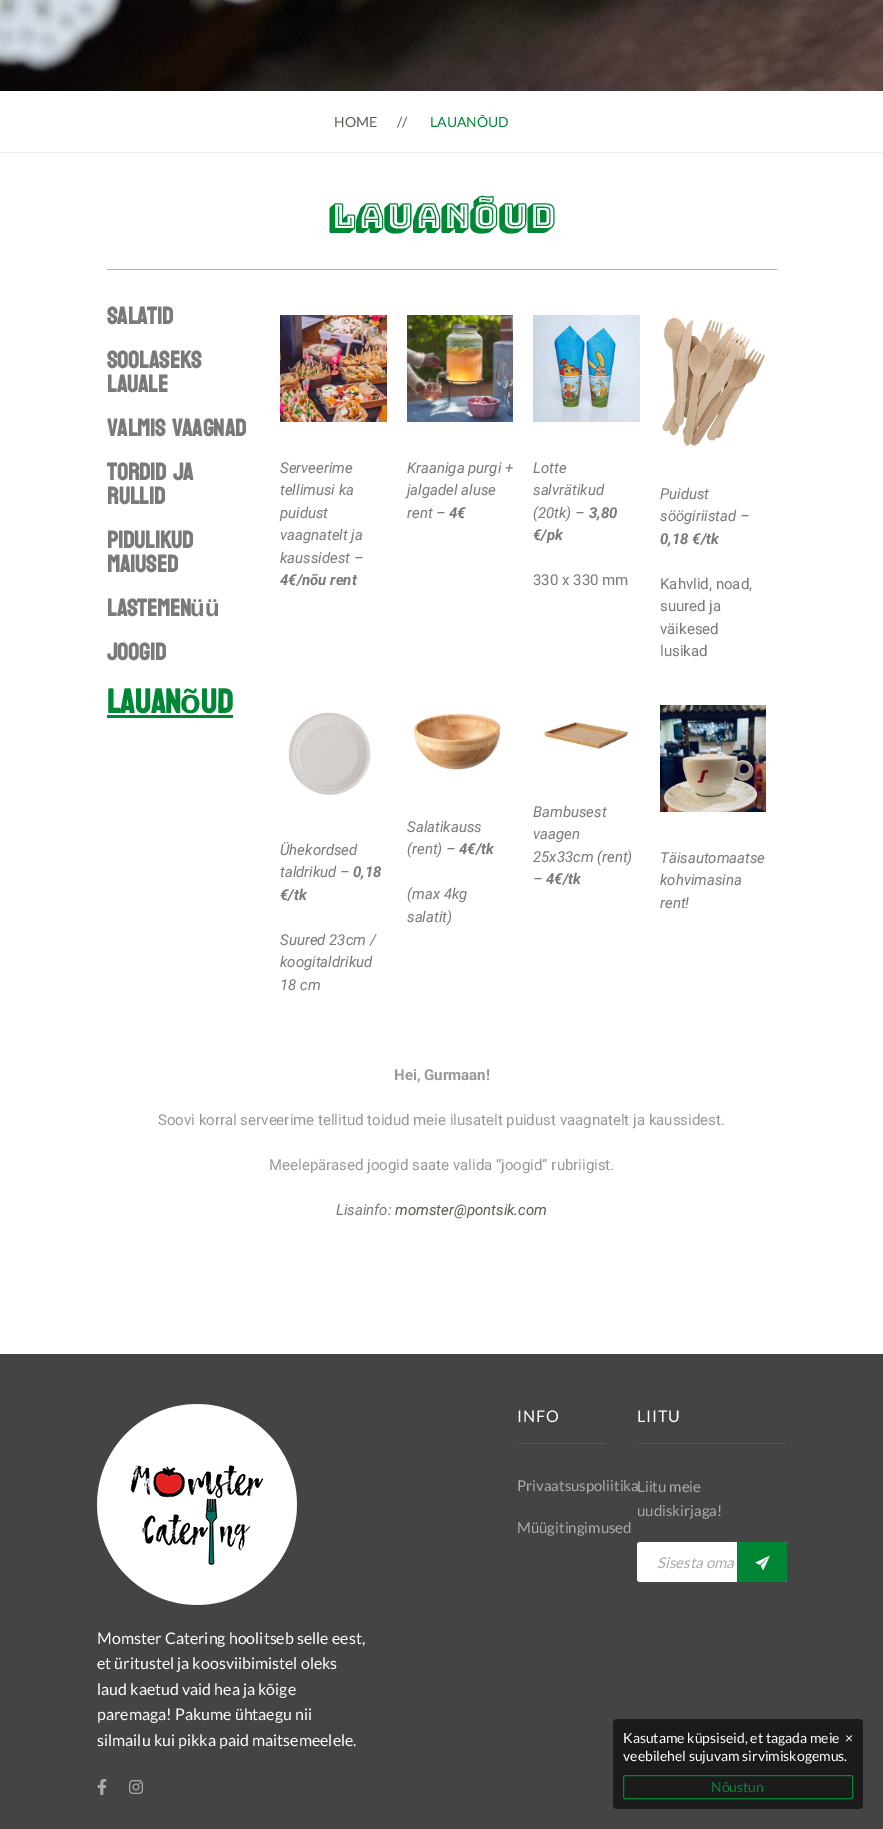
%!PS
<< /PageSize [883 1829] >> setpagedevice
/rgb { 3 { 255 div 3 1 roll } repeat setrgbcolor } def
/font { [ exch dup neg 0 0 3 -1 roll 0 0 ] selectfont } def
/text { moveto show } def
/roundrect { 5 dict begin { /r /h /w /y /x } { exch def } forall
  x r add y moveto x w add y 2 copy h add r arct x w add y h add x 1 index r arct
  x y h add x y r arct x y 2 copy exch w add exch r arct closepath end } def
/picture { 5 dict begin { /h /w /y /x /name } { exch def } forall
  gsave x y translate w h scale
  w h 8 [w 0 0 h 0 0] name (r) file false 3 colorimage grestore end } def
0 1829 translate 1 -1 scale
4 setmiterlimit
255 255 255 rgb
0 0 883 1829 rectfill
(img_01.rgb) 0 0 883 91 picture
238 238 238 rgb
0 152 883 1 rectfill
177 177 177 rgb
107 269 670 1 rectfill
0 135 54 rgb
107 715 126 3 rectfill
(img_02.rgb) 280 315 107 107 picture
(img_03.rgb) 407 315 106 107 picture
(img_04.rgb) 533 315 107 107 picture
(img_05.rgb) 662 317 103 130 picture
(img_06.rgb) 288 712 83 83 picture
(img_07.rgb) 414 713 87 57 picture
(img_08.rgb) 543 722 86 27 picture
(img_09.rgb) 660 705 106 107 picture
68 68 68 rgb
0 1354 883 475 rectfill
84 84 84 rgb
517 1443 90 1 rectfill
637 1443 150 1 rectfill
255 255 255 rgb
637 1542 150 40 3 roundrect fill
0 135 54 rgb
737 1542 moveto 47 0 rlineto 1.5 0 3 1.5 3 3 rcurveto 0 34 rlineto 0 1.5 -1.5 3 -3 3 rcurveto -47 0 rlineto closepath fill
(img_10.rgb) 755 1555 15 16 picture
(img_11.rgb) 97 1404 200 201 picture
(img_12.rgb) 97 1779 10 16 picture
(img_13.rgb) 129 1780 14 14 picture
27 27 27 rgb
613 1719 250 90 4 roundrect fill
0 135 54 rgb
623.5 1775.5 229 23 1.5 roundrect stroke
/Lato-Regular 14 font
94 90 84 rgb
(HOME) 334 127 text
(//) 397 127 text
0 135 54 rgb
(LAUANÕUD) 430 127 text
/BungeeShade-Bold 34 font
(LAUANÕUD) 328 229 text
/Koulen-Bold 24 font
122 122 122 rgb
(Salatid) 107 324 text
(Soolaseks) 107 368 text
(lauale) 107 392 text
(Valmis vaagnad) 107 436 text
(Tordid ja) 107 480 text
(rullid) 107 504 text
(Pidulikud) 107 548 text
(maiused) 107 572 text
(Lastemen) 107 616 text
/LiberationSans-Bold 24 font
(üü) 190 616 text
/Koulen-Bold 24 font
(Joogid) 107 660 text
/Koulen-Bold 34 font
0 135 54 rgb
(Lauan) 107 713 text
/LiberationSans-Bold 34 font
(õ) 180 713 text
/Koulen-Bold 34 font
(ud) 201 713 text
/Roboto-Italic 15 font
122 122 122 rgb
(Serveerime) 280 473 text
(tellimusi ka) 280 495 text
(puidust) 280 518 text
(vaagnatelt ja) 280 540 text
(kaussidest –) 280 563 text
/Roboto-BoldItalic 15 font
(4€/nõu rent) 280 585 text
/Roboto-Italic 15 font
(Kraaniga purgi +) 407 473 text
(jalgadel aluse) 407 495 text
(rent –) 407 518 text
/Roboto-BoldItalic 15 font
(4€) 449 518 text
/Roboto-Italic 15 font
(Lotte) 533 473 text
(salvrätikud) 533 495 text
(\(20tk\) –) 533 518 text
/Roboto-BoldItalic 15 font
(3,80) 589 518 text
(€/pk) 533 540 text
/Roboto-Regular 15 font
(330 x 330 mm) 533 585 text
/Roboto-Italic 15 font
(Puidust) 660 499 text
(söögiriistad –) 660 521 text
/Roboto-BoldItalic 15 font
(0,18 €/tk) 660 544 text
/Roboto-Regular 15 font
(Kahvlid, noad,) 660 589 text
(suured ja) 660 611 text
(väikesed) 660 634 text
(lusikad) 660 656 text
/Roboto-Italic 15 font
(Ühekordsed) 280 855 text
(taldrikud –) 280 877 text
/Roboto-BoldItalic 15 font
(0,18) 353 877 text
(€/tk) 280 900 text
/Roboto-Italic 15 font
(Suured 23cm /) 280 945 text
(koogitaldrikud) 280 967 text
(18 cm) 280 990 text
(Salatikauss) 407 832 text
(\(rent\) –) 407 854 text
/Roboto-BoldItalic 15 font
(4€/tk) 459 854 text
/Roboto-Italic 15 font
(\(max 4kg) 407 899 text
(salatit\)) 407 922 text
(Bambusest) 533 817 text
(vaagen) 533 839 text
(25x33cm \(rent\)) 533 862 text
(–) 533 884 text
/Roboto-BoldItalic 15 font
(4€/tk) 546 884 text
/Roboto-Italic 15 font
(Täisautomaatse) 660 863 text
(kohvimasina) 660 885 text
(rent!) 660 908 text
/Roboto-Bold 15 font
153 153 153 rgb
(Hei, Gurmaan!) 394 1080 text
/Roboto-Regular 15 font
(Soovi korral serveerime tellitud toidud meie ilusatelt puidust vaagnatelt ja kaussidest.) 158 1125 text
(Meelepärased joogid saate valida “joogid” rubriigist.) 269 1170 text
/Roboto-Italic 15 font
122 122 122 rgb
(Lisainfo:) 336 1215 text
94 90 84 rgb
(momster@pontsik.com) 395 1215 text
/Lato-Regular 16 font
255 255 255 rgb
517 1422 moveto 1 0 (INFO) ashow
/Lato-Regular 15 font
171 171 171 rgb
(Privaatsuspoliitika) 517 1491 text
(Müügitingimused) 517 1533 text
/Lato-Regular 16 font
255 255 255 rgb
637 1422 moveto 1 0 (LIITU) ashow
/Lato-Regular 15 font
171 171 171 rgb
(Liitu meie) 637 1492 text
(uudiskirjaga!) 637 1516 text
/Lato-Italic 15 font
(Sisesta oma) 657 1568 text
/Lato-Regular 16 font
255 255 255 rgb
(Momster Catering hoolitseb selle eest,) 97 1644 text
(et üritustel ja koosviibimistel oleks) 97 1669 text
(laud kaetud vaid hea ja kõige) 97 1695 text
(paremaga! Pakume ühtaegu nii) 97 1720 text
(silmailu kui pikka paid maitsemeelele.) 97 1746 text
/Lato-Regular 14 font
(Kasutame küpsiseid, et tagada meie) 623 1743 text
(veebilehel sujuvam sirvimiskogemus.) 623 1761 text
0 135 54 rgb
(Nõustun) 711 1792 text
/LiberationSans-Regular 14 font
255 255 255 rgb
(×) 845 1743 text
showpage
